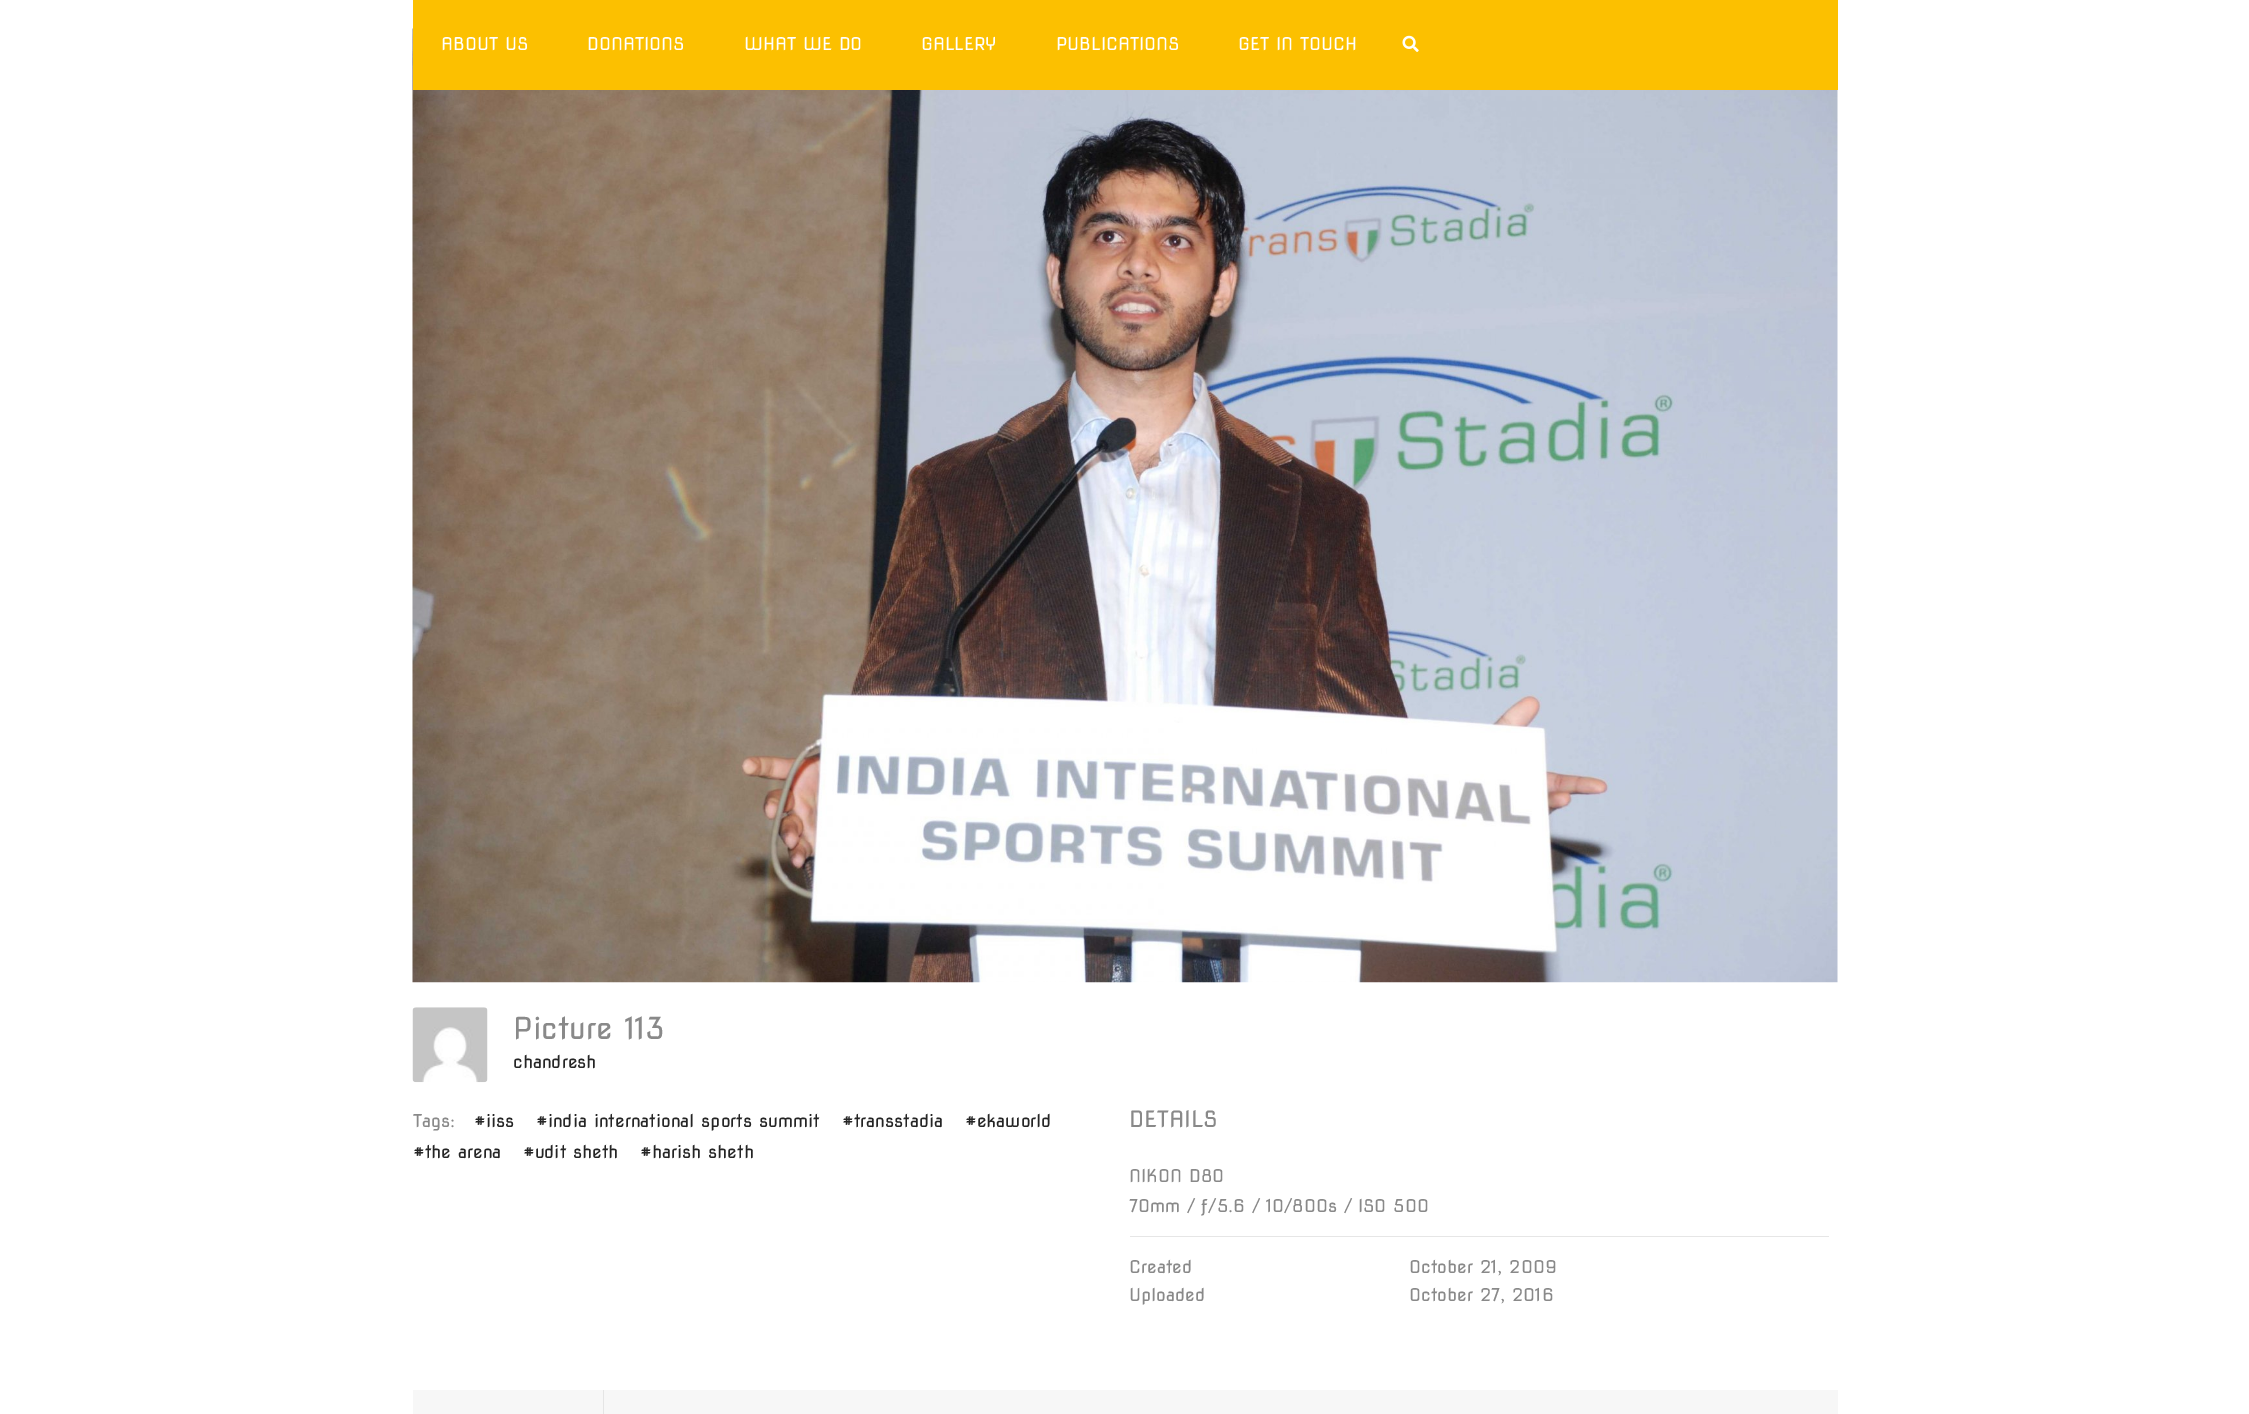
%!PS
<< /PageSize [2249 1414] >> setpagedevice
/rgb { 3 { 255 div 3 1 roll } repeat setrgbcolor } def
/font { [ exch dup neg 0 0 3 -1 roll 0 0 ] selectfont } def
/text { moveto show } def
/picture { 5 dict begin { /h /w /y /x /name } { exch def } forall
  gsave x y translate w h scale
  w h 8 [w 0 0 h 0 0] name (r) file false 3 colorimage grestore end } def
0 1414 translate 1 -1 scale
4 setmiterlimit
255 255 255 rgb
0 0 2249 1414 rectfill
(img_02.rgb) 412 28 1426 955 picture
252 192 0 rgb
413 0 1425 90 rectfill
(img_01.rgb) 1402 35 17 17 picture
(img_03.rgb) 412 1007 76 76 picture
230 230 230 rgb
1130 1236 699 1 rectfill
247 247 247 rgb
413 1390 190 24 rectfill
229 229 229 rgb
603 1390 1 24 rectfill
247 247 247 rgb
604 1390 1234 24 rectfill
/NovaSquare-Regular 17.5 font
255 255 255 rgb
(ABOUT US) 441 50 text
(DONATIONS) 587 50 text
(WHAT WE DO) 744 50 text
(GALLERY) 921 50 text
(PUBLICATIONS) 1056 50 text
(GET IN TOUCH) 1238 50 text
/NovaSquare-Regular 30 font
137 137 137 rgb
(Picture 113) 513 1039 text
/NovaSquare-Regular 17.5 font
37 37 37 rgb
(chandresh) 513 1068 text
(#iiss) 474 1127 text
(#india international sports summit) 536 1127 text
(#transstadia) 842 1127 text
(#ekaworld) 965 1127 text
(#the arena) 413 1158 text
(#udit sheth) 523 1158 text
(#harish sheth) 640 1158 text
137 137 137 rgb
(Tags:) 413 1127 text
/NovaSquare-Regular 22.5 font
(DETAILS) 1129 1127 text
/NovaSquare-Regular 17.5 font
(NIKON D80) 1129 1182 text
(70mm) 1129 1212 text
(/) 1187 1212 text
(ƒ/5.6) 1201 1212 text
(/) 1252 1212 text
(10/800s) 1266 1212 text
(/) 1344 1212 text
(ISO 500) 1358 1212 text
(Created) 1129 1273 text
(October 21, 2009) 1409 1273 text
(Uploaded) 1129 1301 text
(October 27, 2016) 1409 1301 text
showpage
